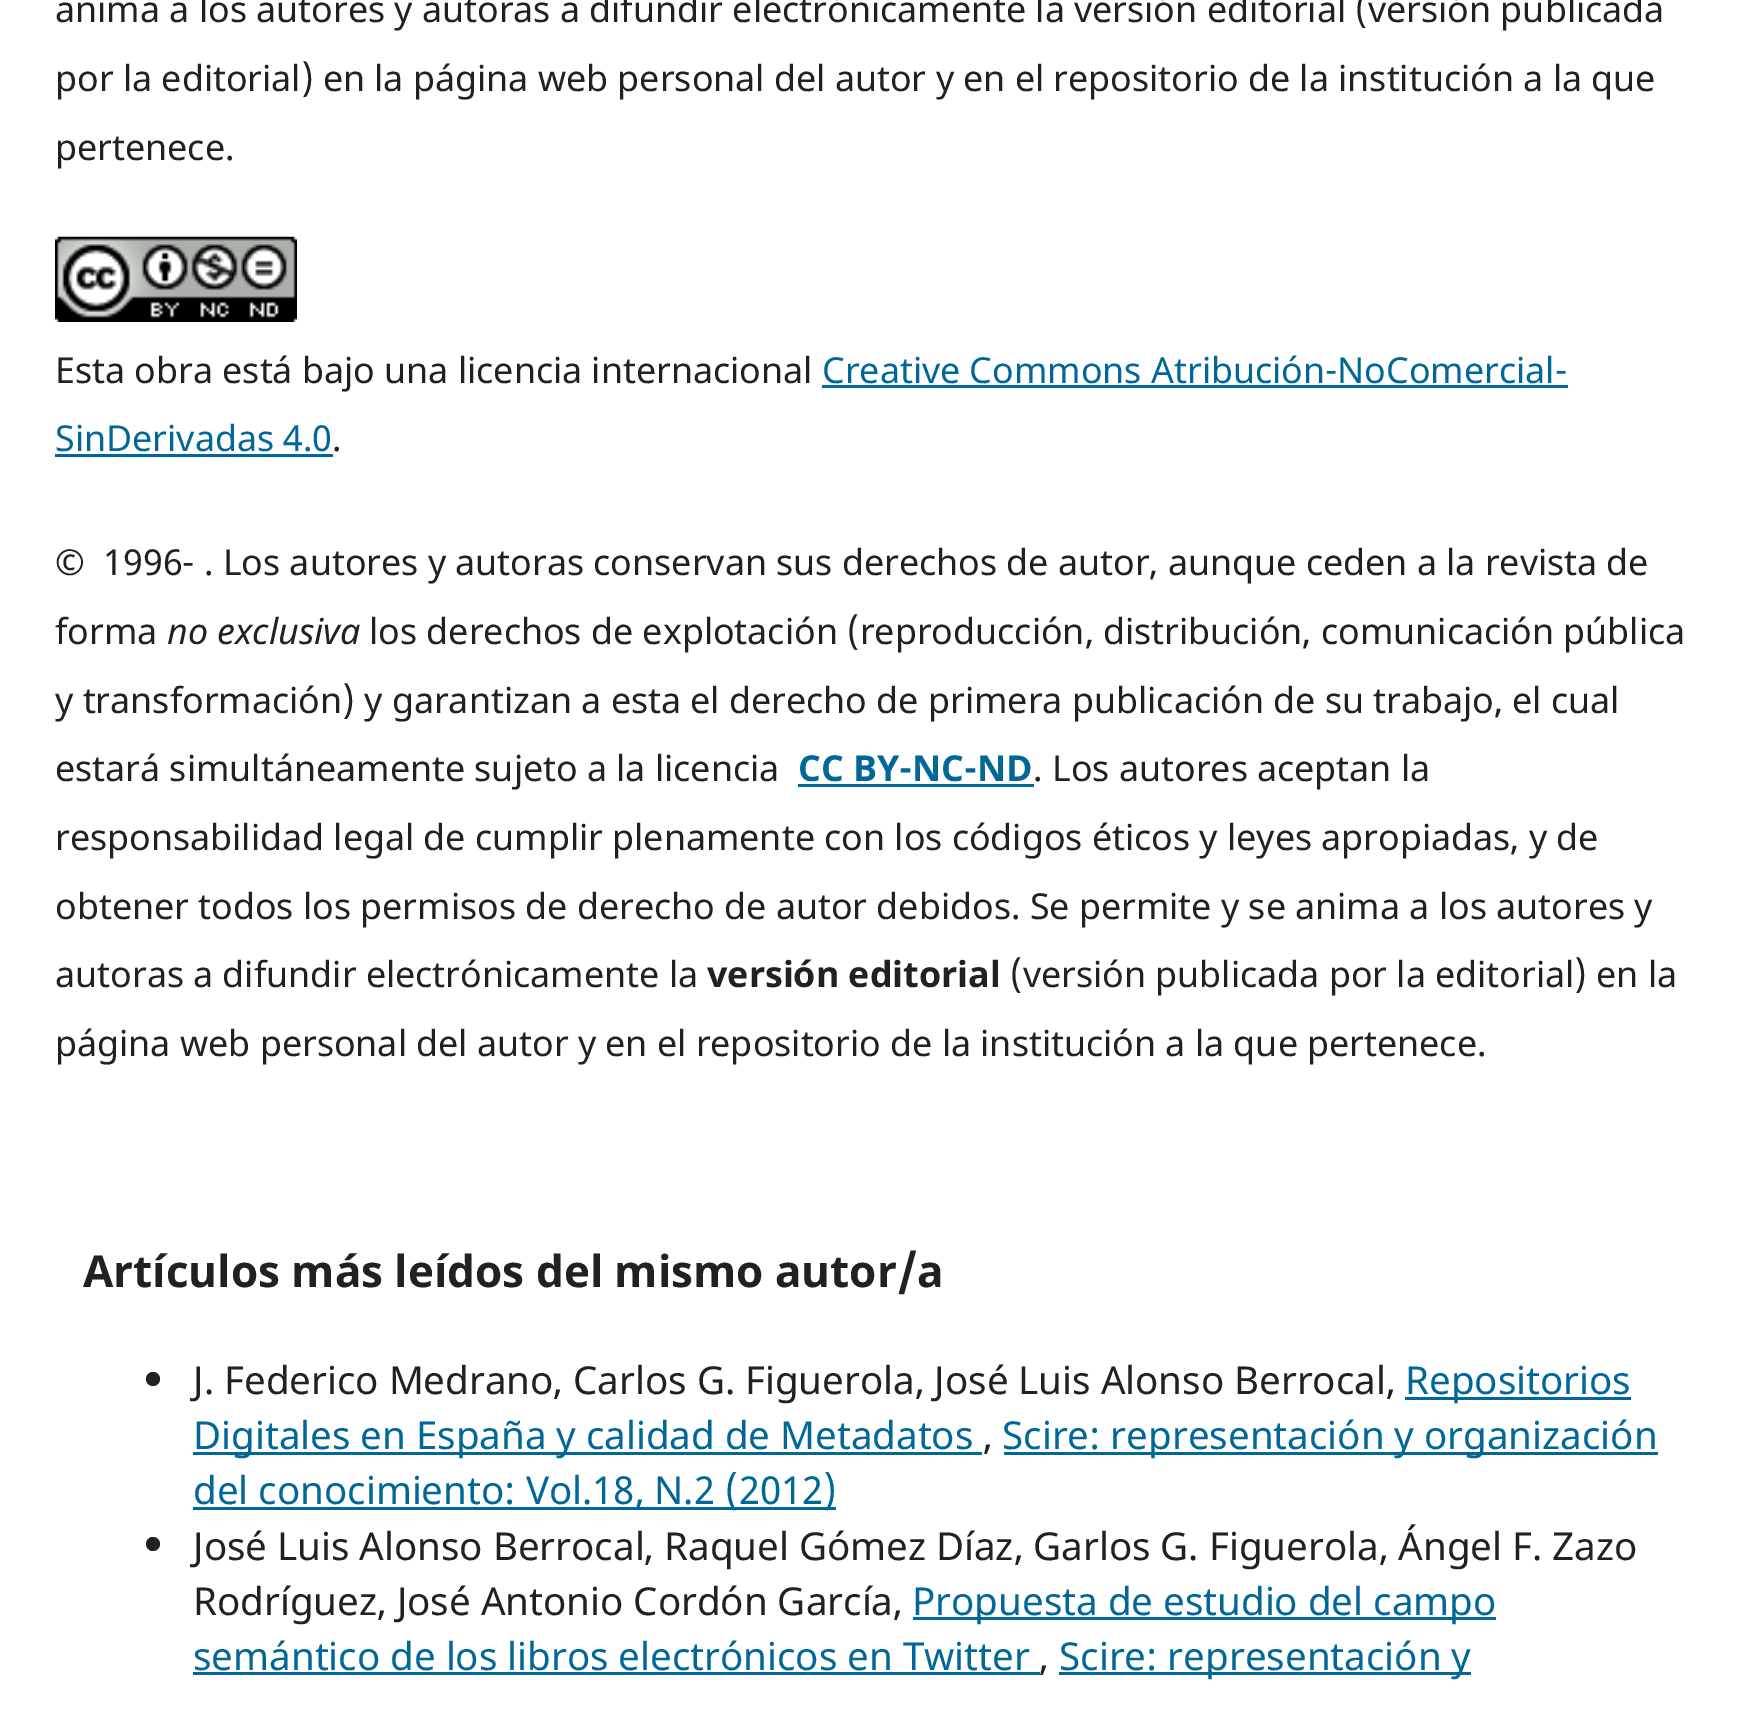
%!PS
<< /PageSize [1740 1717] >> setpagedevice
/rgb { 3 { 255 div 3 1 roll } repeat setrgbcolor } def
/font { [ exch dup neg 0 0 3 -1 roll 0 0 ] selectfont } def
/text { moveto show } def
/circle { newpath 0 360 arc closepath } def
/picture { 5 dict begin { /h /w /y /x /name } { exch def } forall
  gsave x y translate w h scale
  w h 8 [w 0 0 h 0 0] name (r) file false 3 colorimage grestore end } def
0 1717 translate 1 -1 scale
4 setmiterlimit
255 255 255 rgb
0 0 1740 1717 rectfill
(img_01.rgb) 55 236 242 86 picture
0 103 152 rgb
822 385 746 3 rectfill
55 454 278 3 rectfill
798 784 236 3 rectfill
33 33 33 rgb
153 1379 7 circle fill
0 103 152 rgb
1405 1397 226 3 rectfill
193 1452 789 3 rectfill
1004 1452 654 3 rectfill
193 1507 643 3 rectfill
33 33 33 rgb
153 1544 7 circle fill
0 103 152 rgb
913 1617 583 3 rectfill
193 1672 847 3 rectfill
1059 1672 412 3 rectfill
/NotoSans-Regular 35.8 font
33 33 33 rgb
(anima a los autores y autoras a difundir electrónicamente la versión editorial \(versión publicada) 55 22 text
(por la editorial\) en la página web personal del autor y en el repositorio de la institución a la que) 55 91 text
(pertenece.) 55 160 text
(Esta obra está bajo una licencia internacional) 55 383 text
0 103 152 rgb
(Creative Commons Atribución-NoComercial-) 822 383 text
(SinDerivadas 4.0) 55 451 text
33 33 33 rgb
(.) 332 451 text
(©  1996- . Los autores y autoras conservan sus derechos de autor, aunque ceden a la revista de) 55 575 text
(forma) 55 644 text
/NotoSans-Italic 35.8 font
(no exclusiva) 167 644 text
/NotoSans-Regular 35.8 font
(los derechos de explotación \(reproducción, distribución, comunicación pública) 369 644 text
(y transformación\) y garantizan a esta el derecho de primera publicación de su trabajo, el cual) 55 713 text
(estará simultáneamente sujeto a la licencia) 55 781 text
/NotoSans-Bold 35.8 font
0 103 152 rgb
(CC BY-NC-ND) 798 781 text
/NotoSans-Regular 35.8 font
33 33 33 rgb
(. Los autores aceptan la) 1033 781 text
(responsabilidad legal de cumplir plenamente con los códigos éticos y leyes apropiadas, y de) 55 850 text
(obtener todos los permisos de derecho de autor debidos. Se permite y se anima a los autores y) 55 919 text
(autoras a difundir electrónicamente la) 55 987 text
/NotoSans-Bold 35.8 font
(versión editorial) 707 987 text
/NotoSans-Regular 35.8 font
(\(versión publicada por la editorial\) en la) 1010 987 text
(página web personal del autor y en el repositorio de la institución a la que pertenece.) 55 1056 text
/NotoSans-Bold 44 font
(Artículos más leídos del mismo autor/a) 83 1287 text
/NotoSans-Regular 38.5 font
(J. Federico Medrano, Carlos G. Figuerola, José Luis Alonso Berrocal,) 193 1394 text
0 103 152 rgb
(Repositorios) 1405 1394 text
(Digitales en España y calidad de Metadatos) 193 1449 text
33 33 33 rgb
(,) 983 1449 text
0 103 152 rgb
(Scire: representación y organización) 1002 1449 text
(del conocimiento: Vol.18, N.2 \(2012\)) 193 1504 text
33 33 33 rgb
(José Luis Alonso Berrocal, Raquel Gómez Díaz, Garlos G. Figuerola, Ángel F. Zazo) 193 1560 text
(Rodríguez, José Antonio Cordón García,) 193 1615 text
0 103 152 rgb
(Propuesta de estudio del campo) 912 1615 text
(semántico de los libros electrónicos en Twitter) 193 1670 text
33 33 33 rgb
(,) 1039 1670 text
0 103 152 rgb
(Scire: representación y) 1059 1670 text
showpage
